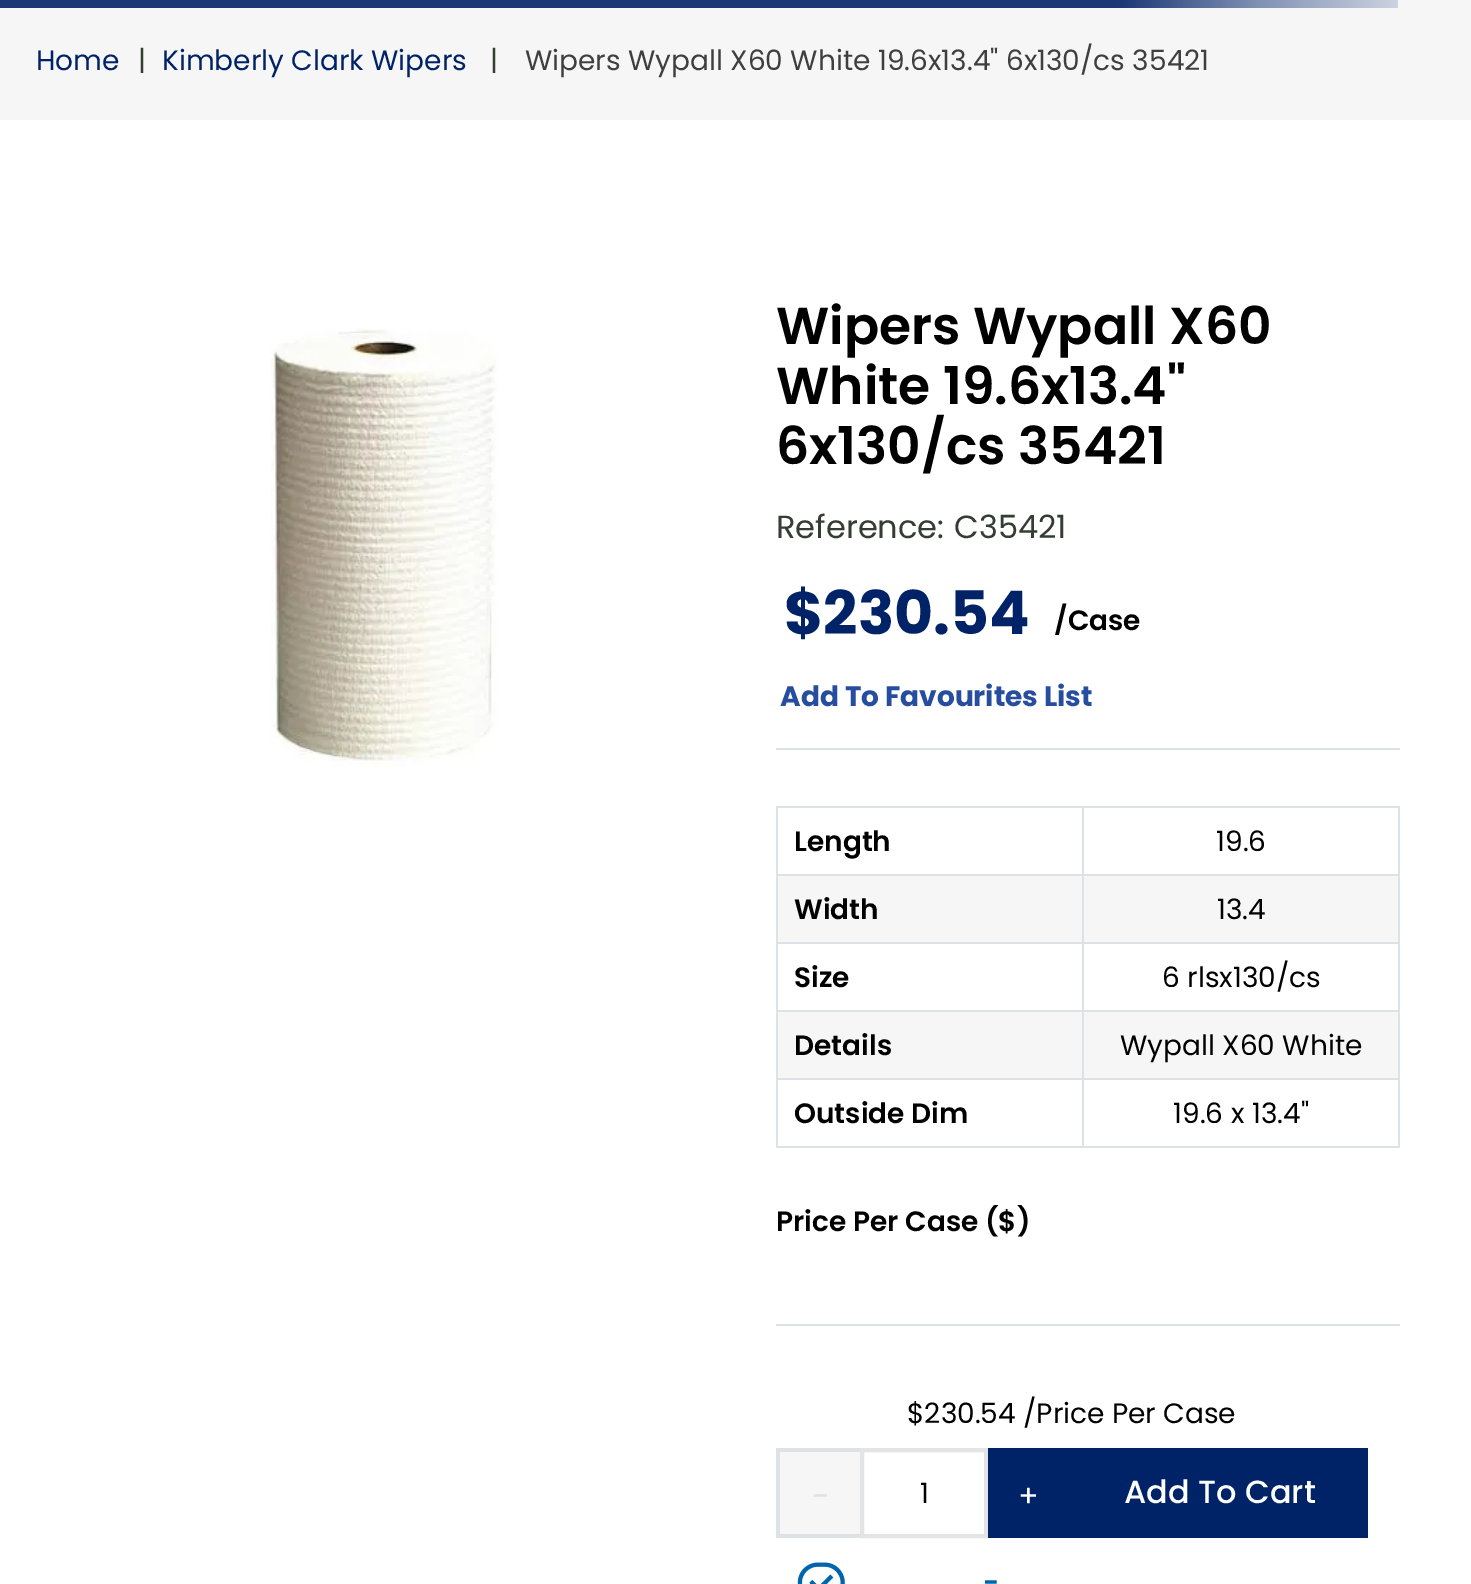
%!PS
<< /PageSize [1471 1584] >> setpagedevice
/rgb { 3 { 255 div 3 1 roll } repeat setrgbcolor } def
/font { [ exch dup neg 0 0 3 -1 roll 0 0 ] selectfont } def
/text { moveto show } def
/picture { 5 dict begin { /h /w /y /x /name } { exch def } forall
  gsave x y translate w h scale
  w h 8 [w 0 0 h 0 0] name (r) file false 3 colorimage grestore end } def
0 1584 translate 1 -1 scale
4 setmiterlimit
255 255 255 rgb
0 0 1471 1584 rectfill
246 246 246 rgb
0 0 1471 120 rectfill
gsave 0 0 moveto 1398 0 rlineto 0 8 rlineto -1398 0 rlineto closepath clip newpath
<< /ShadingType 2 /ColorSpace /DeviceRGB /Coords [0 4 1398 4] /Extend [true true] /Function << /FunctionType 3 /Domain [0 1] /Functions [<< /FunctionType 2 /Domain [0 1] /C0 [0.102 0.22 0.459] /C1 [0.102 0.22 0.459] /N 1 >> << /FunctionType 2 /Domain [0 1] /C0 [0.102 0.22 0.459] /C1 [0.502 0.569 0.702] /N 1 >> << /FunctionType 2 /Domain [0 1] /C0 [0.502 0.569 0.702] /C1 [0.8 0.827 0.878] /N 1 >>] /Bounds [0.8 0.9] /Encode [0 1 0 1 0 1] >> >> shfill grestore
(img_01.rgb) 271 328 227 440 picture
220 226 229 rgb
776 748 624 2 rectfill
1082 806 318 2 rectfill
1082 874 318 2 rectfill
246 246 246 rgb
778 876 620 66 rectfill
220 226 229 rgb
1082 942 318 2 rectfill
1082 1010 318 2 rectfill
246 246 246 rgb
778 1012 620 66 rectfill
220 226 229 rgb
1082 1078 318 2 rectfill
1398 1078 2 70 rectfill
1082 1146 318 2 rectfill
1082 1078 2 70 rectfill
776 1078 308 2 rectfill
1082 1010 2 70 rectfill
776 1010 308 2 rectfill
1082 942 2 70 rectfill
776 942 308 2 rectfill
1082 874 2 70 rectfill
776 874 308 2 rectfill
1082 806 2 70 rectfill
776 806 308 2 rectfill
776 1146 308 2 rectfill
776 1078 2 70 rectfill
776 1010 2 70 rectfill
776 942 2 70 rectfill
776 874 2 70 rectfill
776 806 2 70 rectfill
1398 1010 2 70 rectfill
1398 942 2 70 rectfill
1398 874 2 70 rectfill
1398 806 2 70 rectfill
776 1324 624 2 rectfill
246 246 246 rgb
780 1452 80 82 rectfill
220 226 229 rgb
776 1448 84 4 rectfill
776 1534 84 4 rectfill
776 1448 4 90 rectfill
227 228 230 rgb
4 setlinewidth
862 1450 124 86 rectstroke
0 34 102 rgb
988 1452 80 82 rectfill
988 1448 84 4 rectfill
1068 1448 4 90 rectfill
988 1534 84 4 rectfill
1072 1448 296 90 rectfill
(img_02.rgb) 797 1562 48 22 picture
/Poppins-Regular 28 font
(Home) 36 70 text
52 61 51 rgb
(|) 138 70 text
0 34 102 rgb
(Kimberly Clark Wipers) 162 70 text
52 61 51 rgb
(|) 490 70 text
63 63 64 rgb
(Wipers Wypall X60 White 19.6x13.4" 6x130/cs 35421) 525 70 text
/Poppins-SemiBold 52 font
0 0 0 rgb
(Wipers Wypall X60) 776 344 text
(White 19.6x13.4") 776 404 text
(6x130/cs 35421) 776 464 text
/Poppins-Regular 32 font
52 61 51 rgb
(Reference:) 776 538 text
(C35421) 954 538 text
/Poppins-Bold 60 font
0 34 102 rgb
($230.54) 784 634 text
/Poppins-SemiBold 28 font
0 0 0 rgb
(/Case) 1054 630 text
/Poppins-Bold 28 font
38 77 158 rgb
(Add To Favourites List) 780 706 text
/Poppins-SemiBold 28 font
0 0 0 rgb
(Length) 794 851 text
/Poppins-Regular 28 font
(19.6) 1216 851 text
/Poppins-SemiBold 28 font
(Width) 794 919 text
/Poppins-Regular 28 font
(13.4) 1217 919 text
/Poppins-SemiBold 28 font
(Size) 794 987 text
/Poppins-Regular 28 font
(6 rlsx130/cs) 1162 987 text
/Poppins-SemiBold 28 font
(Details) 794 1055 text
/Poppins-Regular 28 font
(Wypall X60 White) 1120 1055 text
/Poppins-SemiBold 28 font
(Outside Dim) 794 1123 text
/Poppins-Regular 28 font
(19.6 x 13.4") 1173 1123 text
/Poppins-SemiBold 28 font
(Price Per Case \($\)) 776 1231 text
/Poppins-Regular 28 font
($230.54 /Price Per Case) 907 1423 text
/WenQuanYiZenHei-Bold 28 font
220 226 229 rgb
(－) 806 1504 text
/Poppins-Regular 28 font
0 0 0 rgb
(1) 920 1503 text
/WenQuanYiZenHei-Bold 28 font
255 255 255 rgb
(＋) 1014 1504 text
/Poppins-Medium 32 font
(Add To Cart) 1124 1503 text
/Poppins-SemiBold 28 font
0 101 172 rgb
(-) 983 1592 text
showpage
